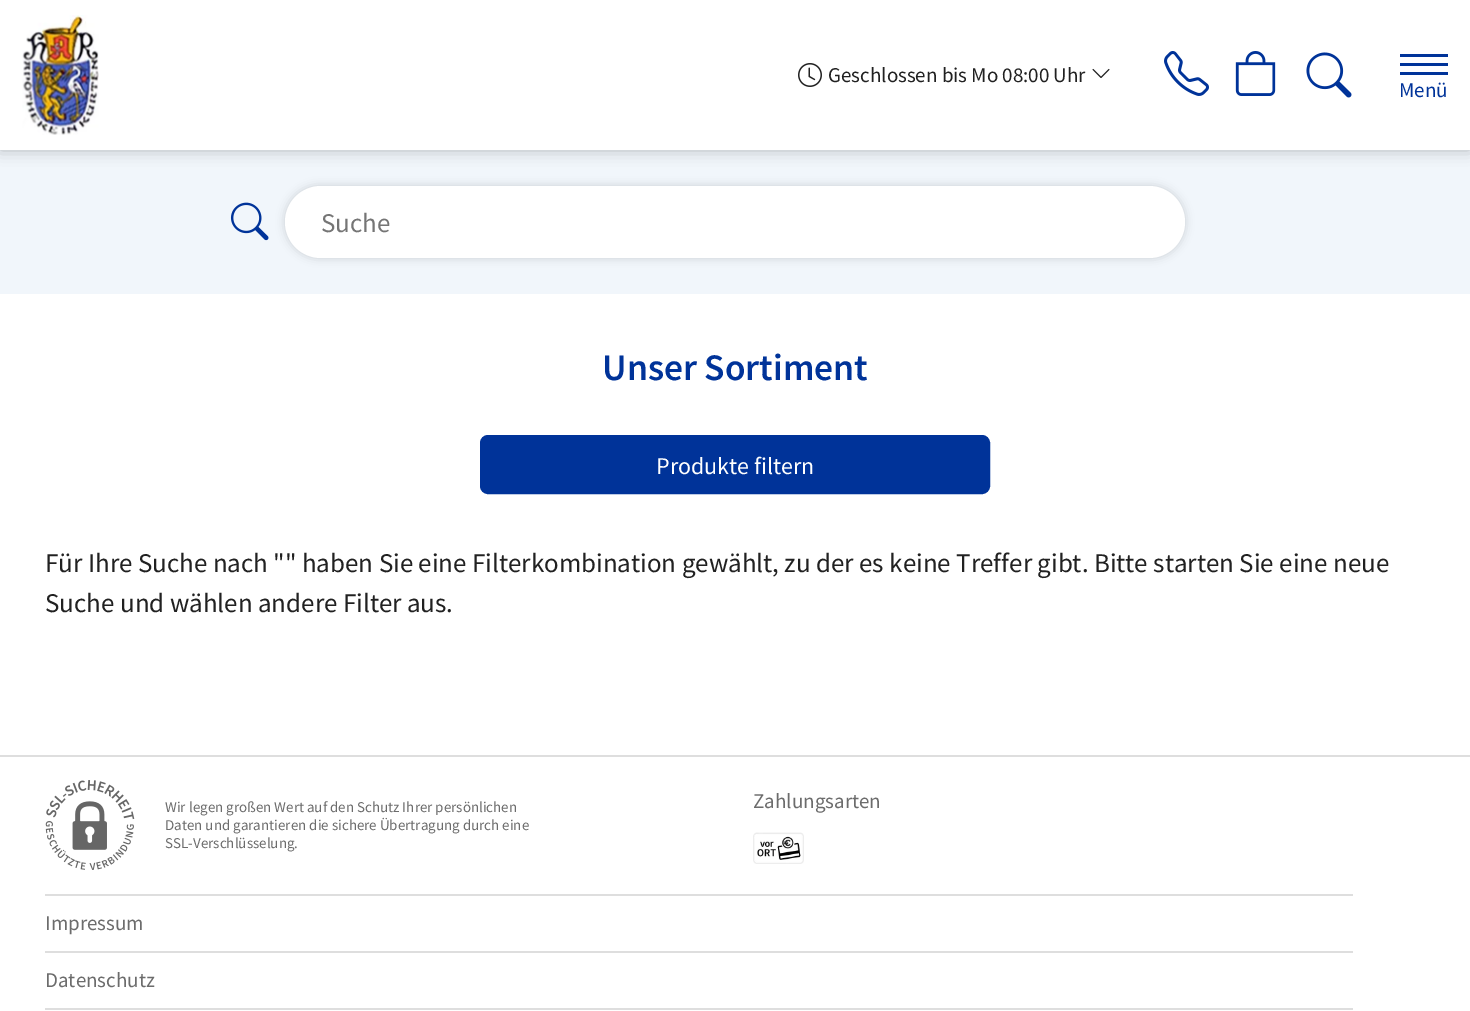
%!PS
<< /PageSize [1470 1011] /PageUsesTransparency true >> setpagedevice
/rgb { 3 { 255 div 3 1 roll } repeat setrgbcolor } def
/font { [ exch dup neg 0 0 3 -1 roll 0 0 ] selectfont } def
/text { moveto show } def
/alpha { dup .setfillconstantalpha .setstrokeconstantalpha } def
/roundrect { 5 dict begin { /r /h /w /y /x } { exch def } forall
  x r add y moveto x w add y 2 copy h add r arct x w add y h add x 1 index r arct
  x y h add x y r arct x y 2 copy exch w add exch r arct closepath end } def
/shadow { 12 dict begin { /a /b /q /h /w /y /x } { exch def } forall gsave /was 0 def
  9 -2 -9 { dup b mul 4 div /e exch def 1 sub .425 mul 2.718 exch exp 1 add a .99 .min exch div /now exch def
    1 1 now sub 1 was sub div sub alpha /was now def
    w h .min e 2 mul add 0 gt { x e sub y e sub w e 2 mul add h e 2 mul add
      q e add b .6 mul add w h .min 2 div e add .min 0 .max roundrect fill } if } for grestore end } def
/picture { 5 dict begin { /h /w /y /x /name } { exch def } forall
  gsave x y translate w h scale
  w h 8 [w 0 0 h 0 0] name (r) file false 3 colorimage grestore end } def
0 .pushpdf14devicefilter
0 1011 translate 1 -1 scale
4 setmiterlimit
255 255 255 rgb
0 0 1470 1011 rectfill
241 246 251 rgb
0 150 1470 144 rectfill
0 0 0 rgb
0 0 1470 150 0 7.5 0.25 shadow
255 255 255 rgb
0 0 1470 150 rectfill
(img_01.rgb) 22 15 77 120 picture
(img_02.rgb) 798 63 24 24 picture
(img_03.rgb) 1092 68 18 10 picture
(img_04.rgb) 1164 51 45 45 picture
(img_05.rgb) 1235 51 41 45 picture
(img_06.rgb) 1306 52 46 46 picture
0 51 153 rgb
1400 63 48 3 rectfill
1400 54 48 3 rectfill
1400 72 48 3 rectfill
(img_07.rgb) 230 202 39 39 picture
0 0 0 rgb
285 186 900 72 36 4.5 0.15 shadow
255 255 255 rgb
285 186 900 72 36 roundrect fill
0 51 153 rgb
481 436 508 57 7 roundrect gsave fill grestore
2 setlinewidth
stroke
222 222 222 rgb
0 755 1470 2 rectfill
(img_08.rgb) 45 780 90 90 picture
(img_09.rgb) 753 832 51 32 picture
45 894 1308 2 rectfill
45 951 1308 2 rectfill
45 1008 1308 2 rectfill
/SourceSansPro-Regular 21 font
33 33 33 rgb
(Geschlossen bis Mo 08:00 Uhr) 828 82 text
0 51 153 rgb
(Menü) 1399 97 text
/SourceSansPro-Regular 27 font
117 117 117 rgb
(Suche) 321 232 text
/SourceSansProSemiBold-SemiBold 37.5 font
0 51 153 rgb
(Unser Sortiment) 602 380 text
/SourceSansPro-Regular 24 font
255 255 255 rgb
(Produkte filtern) 656 474 text
/SourceSansPro-Regular 27 font
33 33 33 rgb
(Für Ihre Suche nach "" haben Sie eine Filterkombination gewählt, zu der es keine Treffer gibt. Bitte starten Sie eine neue) 45 572 text
(Suche und wählen andere Filter aus.) 45 612 text
/SourceSansPro-Regular 15 font
108 108 108 rgb
(Wir legen großen Wert auf den Schutz Ihrer persönlichen) 165 812 text
(Daten und garantieren die sichere Übertragung durch eine) 165 830 text
(SSL-Verschlüsselung.) 165 848 text
/SourceSansPro-Regular 21 font
(Zahlungsarten) 753 808 text
(Impressum) 45 930 text
(Datenschutz) 45 987 text
.poppdf14devicefilter showpage
